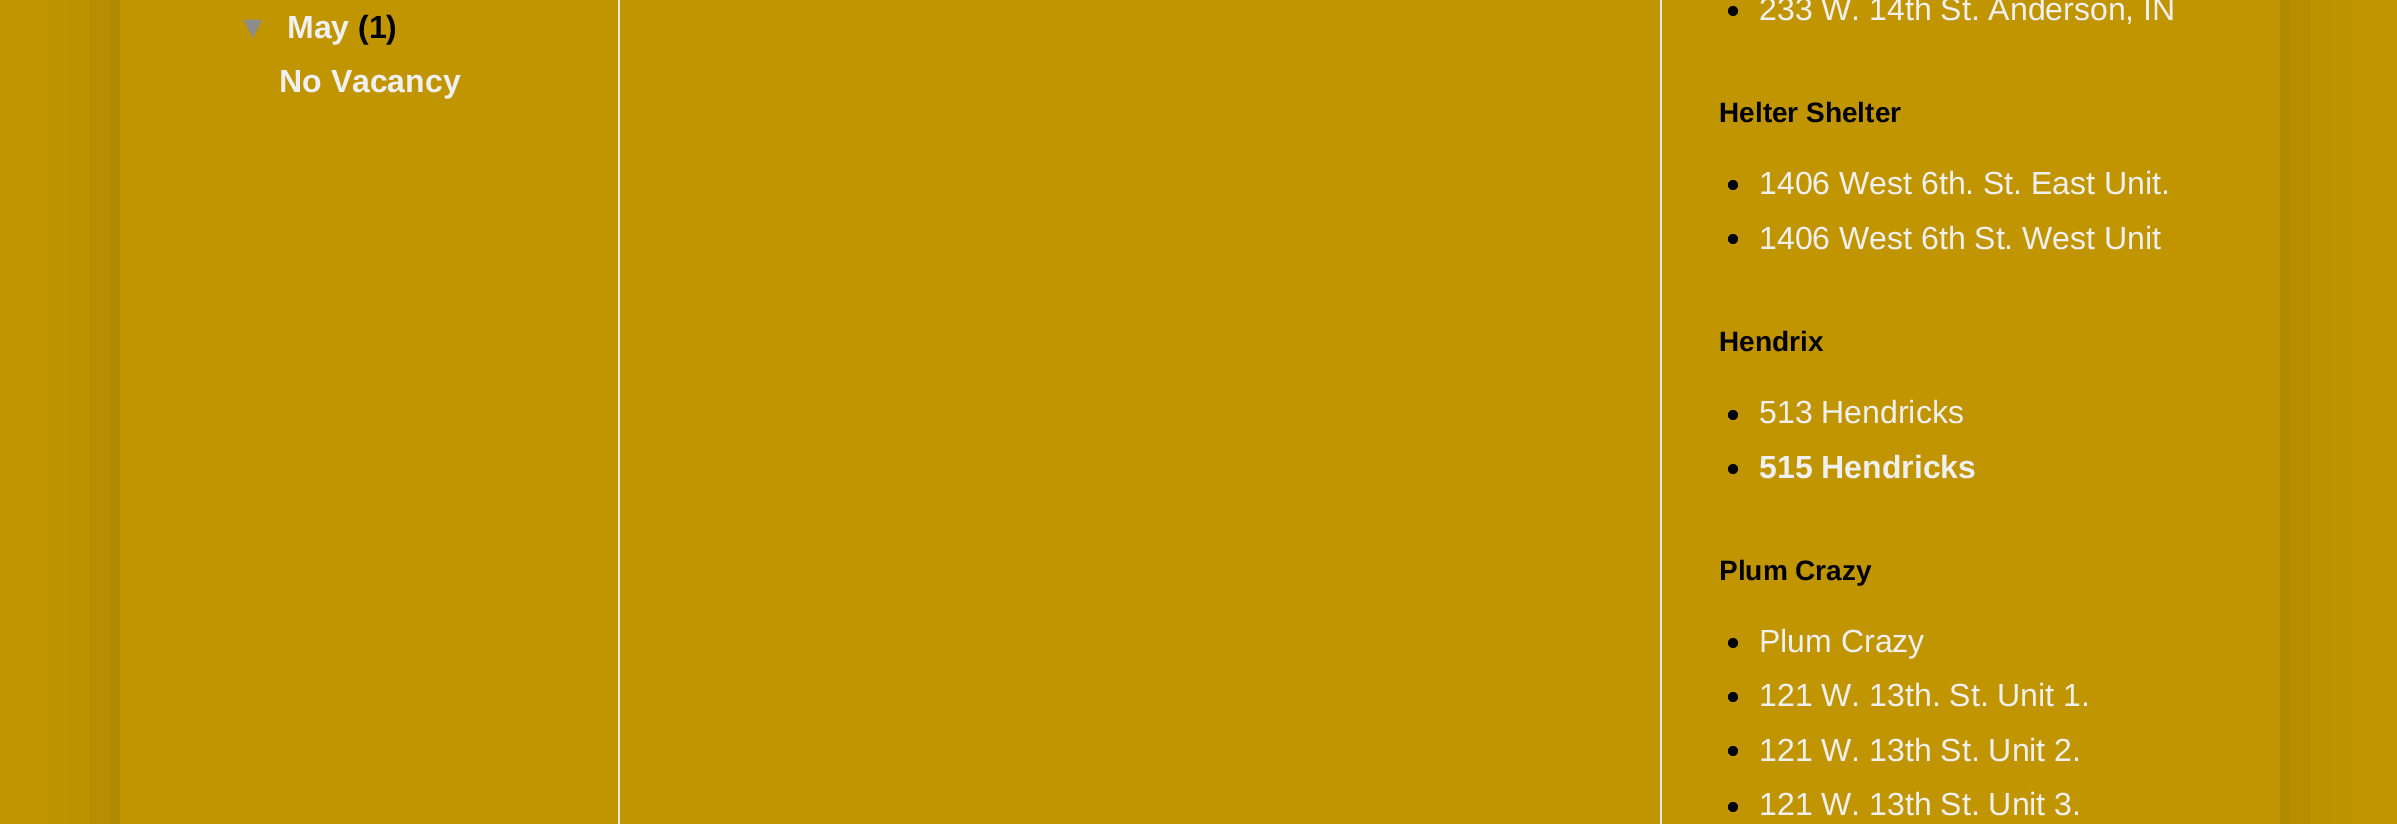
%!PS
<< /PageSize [2397 824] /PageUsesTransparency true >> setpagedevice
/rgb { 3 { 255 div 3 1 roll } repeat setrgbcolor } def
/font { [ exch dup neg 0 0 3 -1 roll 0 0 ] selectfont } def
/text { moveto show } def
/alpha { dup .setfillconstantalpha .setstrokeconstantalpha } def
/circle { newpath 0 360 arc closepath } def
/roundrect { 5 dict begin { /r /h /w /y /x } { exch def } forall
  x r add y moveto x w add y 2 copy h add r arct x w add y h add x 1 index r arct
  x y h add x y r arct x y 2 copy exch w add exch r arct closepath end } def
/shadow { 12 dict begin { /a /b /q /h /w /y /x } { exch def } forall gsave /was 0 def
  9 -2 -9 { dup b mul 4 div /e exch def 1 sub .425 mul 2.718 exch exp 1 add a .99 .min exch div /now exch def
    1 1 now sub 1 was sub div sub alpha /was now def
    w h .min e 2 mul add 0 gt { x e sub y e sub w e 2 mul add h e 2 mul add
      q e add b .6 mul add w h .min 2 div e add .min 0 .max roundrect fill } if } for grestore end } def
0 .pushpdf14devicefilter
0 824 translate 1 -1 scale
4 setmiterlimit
193 149 0 rgb
0 0 2397 824 rectfill
gsave
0 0 moveto 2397 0 rlineto 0 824 rlineto -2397 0 rlineto closepath 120 -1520 moveto 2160 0 rlineto 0 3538 rlineto -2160 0 rlineto closepath eoclip newpath
0 0 0 rgb
120 -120 2160 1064 0 40 0.15 shadow
grestore
0 0 0 rgb
1733 11 5 circle fill
1733 185 5 circle fill
1733 239 5 circle fill
1733 415 5 circle fill
1733 469 5 circle fill
1733 643 5 circle fill
1733 697 5 circle fill
1733 751 5 circle fill
1733 807 5 circle fill
233 233 233 rgb
618 0 2 824 rectfill
1660 0 2 824 rectfill
/LiberationSans-Bold 32 font
140 140 140 rgb
(▼) 237 38 text
240 240 240 rgb
(May) 287 38 text
0 0 0 rgb
(\(1\)) 358 38 text
240 240 240 rgb
(No Vacancy) 279 92 text
/LiberationSans-Regular 32 font
(233 W. 14th St. Anderson, IN) 1759 20 text
/LiberationSans-Bold 28 font
0 0 0 rgb
(Helter Shelter) 1719 122 text
/LiberationSans-Regular 32 font
240 240 240 rgb
(1406 West 6th. St. East Unit.) 1759 194 text
(1406 West 6th St. West Unit) 1759 249 text
/LiberationSans-Bold 28 font
0 0 0 rgb
(Hendrix) 1719 351 text
/LiberationSans-Regular 32 font
240 240 240 rgb
(513 Hendricks) 1759 423 text
/LiberationSans-Bold 32 font
(515 Hendricks) 1759 478 text
/LiberationSans-Bold 28 font
0 0 0 rgb
(Plum Crazy) 1719 580 text
/LiberationSans-Regular 32 font
240 240 240 rgb
(Plum Crazy) 1759 652 text
(121 W. 13th. St. Unit 1.) 1759 706 text
(121 W. 13th St. Unit 2.) 1759 761 text
(121 W. 13th St. Unit 3.) 1759 815 text
.poppdf14devicefilter showpage
